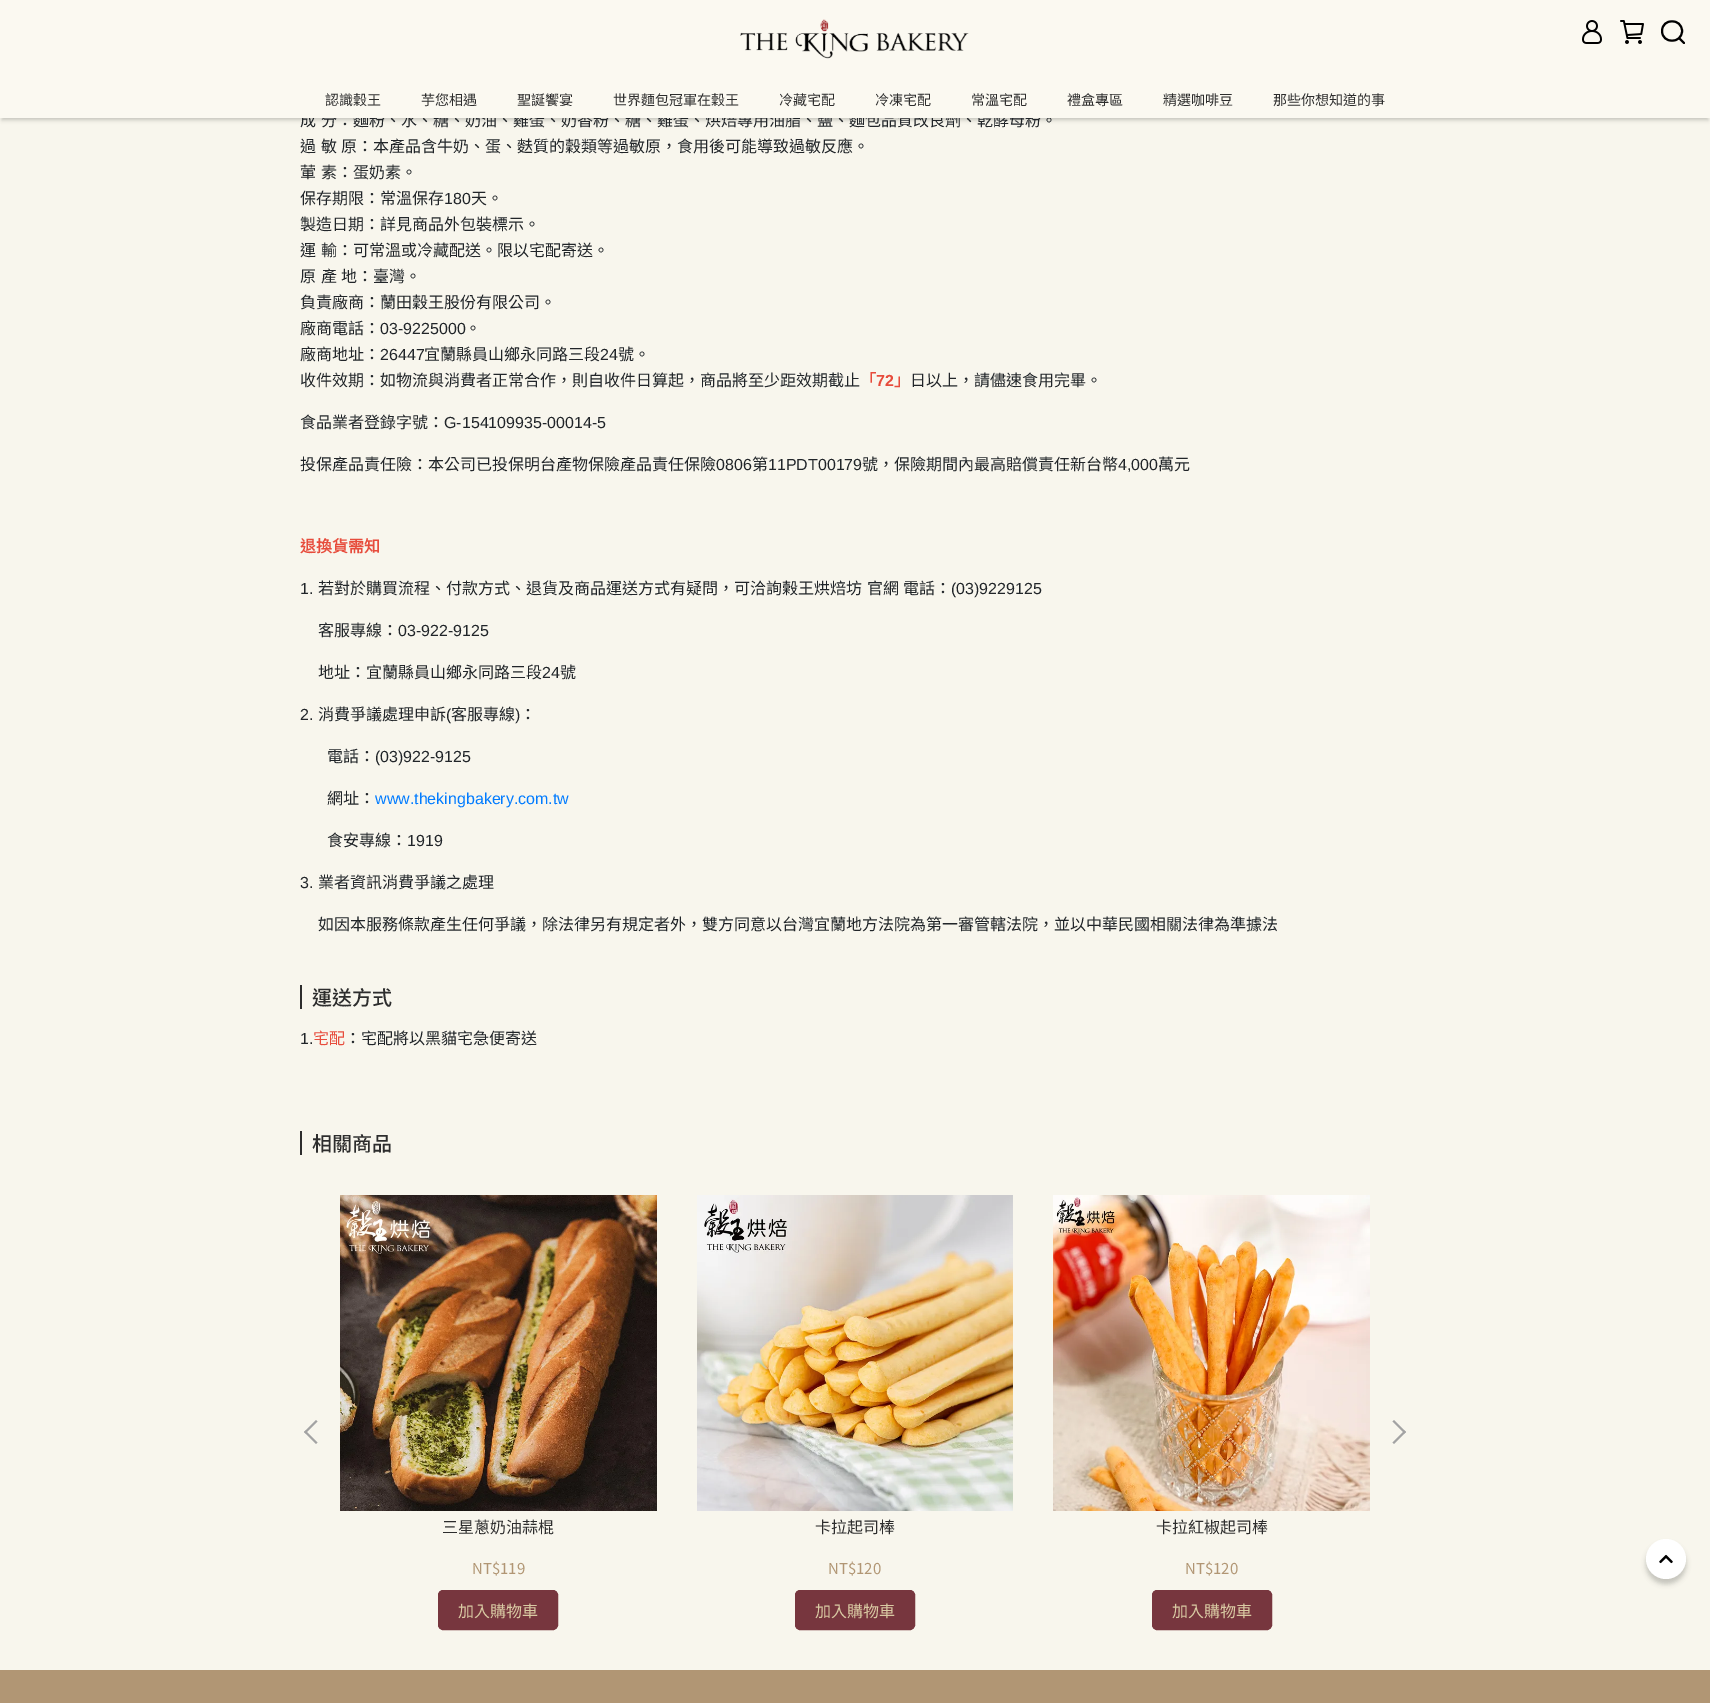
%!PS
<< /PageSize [1710 1703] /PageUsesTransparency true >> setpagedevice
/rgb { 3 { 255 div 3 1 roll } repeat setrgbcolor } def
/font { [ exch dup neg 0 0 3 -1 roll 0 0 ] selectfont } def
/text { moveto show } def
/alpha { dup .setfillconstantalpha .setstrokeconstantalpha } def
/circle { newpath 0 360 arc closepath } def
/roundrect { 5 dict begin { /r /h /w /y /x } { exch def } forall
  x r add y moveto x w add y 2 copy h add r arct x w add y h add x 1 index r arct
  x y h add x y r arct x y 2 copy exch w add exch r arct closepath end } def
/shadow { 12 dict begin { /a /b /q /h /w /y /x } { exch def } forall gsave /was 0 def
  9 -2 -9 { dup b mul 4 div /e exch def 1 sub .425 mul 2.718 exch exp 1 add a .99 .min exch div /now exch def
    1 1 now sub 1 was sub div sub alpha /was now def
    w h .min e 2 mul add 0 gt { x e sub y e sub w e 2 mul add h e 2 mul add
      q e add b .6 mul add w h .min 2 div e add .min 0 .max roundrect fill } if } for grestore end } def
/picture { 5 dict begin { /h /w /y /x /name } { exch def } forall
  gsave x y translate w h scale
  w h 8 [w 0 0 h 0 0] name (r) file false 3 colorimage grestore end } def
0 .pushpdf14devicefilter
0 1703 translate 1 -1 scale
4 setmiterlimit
248 246 237 rgb
0 0 1710 1703 rectfill
251 249 241 rgb
0 0 1710 81 rectfill
(img_01.rgb) 740 19 229 40 picture
(img_02.rgb) 1582 20 20 24 picture
(img_03.rgb) 1620 20 24 24 picture
0 0 0 rgb
2 setlinewidth
1 setlinecap
1 setlinejoin
1682 31 moveto 0 13 -20 13 -20 0 rcurveto 0 -13 20 -13 20 0 rcurveto closepath 1680 39 moveto 4 4 rlineto stroke
2 87 1706 33 0 2 0.2 shadow
45 45 45 rgb
300 985 2 24 rectfill
300 1131 2 24 rectfill
163 163 163 rgb
316 1444 moveto -12 -12 rlineto 1.5 -1.5 rlineto 12 12 rlineto closepath fill
305.5 1433.5 moveto -1.5 -1.5 rlineto 12 -12 rlineto 1.5 1.5 rlineto closepath fill
1394 1420 moveto 12 12 rlineto -1.5 1.5 rlineto -12 -12 rlineto closepath fill
1404.5 1430.5 moveto 1.5 1.5 rlineto -12 12 rlineto -1.5 -1.5 rlineto closepath fill
(img_04.rgb) 340 1195 317 316 picture
119 54 62 rgb
438.5 1590.5 119 39 4.5 roundrect gsave fill grestore
1 setlinewidth
0 setlinecap
0 setlinejoin
stroke
(img_05.rgb) 697 1195 316 316 picture
795.5 1590.5 119 39 4.5 roundrect gsave fill grestore
stroke
(img_06.rgb) 1053 1195 317 316 picture
1152.5 1590.5 119 39 4.5 roundrect gsave fill grestore
stroke
0 0 0 rgb
1646 1544 40 40 20 2.5 0.2 shadow
255 255 255 rgb
1666 1559 20 circle fill
(img_07.rgb) 1659 1554 14 10 picture
177 150 116 rgb
0 1670 1710 33 rectfill
/NotoSansCJKTC-Regular 16 font
33 37 41 rgb
300 126 moveto 1 0 32 (成 分：麵粉、水、糖、奶油、雞蛋、奶香粉、糖、雞蛋、烘焙專用油脂、鹽、麵包品質改良劑、乾酵母粉。) widthshow
251 249 241 rgb
0 81 1710 37 rectfill
/NotoSansTC-Regular 14 font
45 45 45 rgb
(精選咖啡豆) 1163 105 text
(禮盒專區) 1067 105 text
(冷藏宅配) 779 105 text
(世界麵包冠軍在穀王) 613 105 text
(聖誕饗宴) 517 105 text
(芋您相遇) 421 105 text
(那些你想知道的事) 1273 105 text
(常溫宅配) 971 105 text
(冷凍宅配) 875 105 text
(認識穀王) 325 105 text
/NotoSansCJKTC-Regular 16 font
33 37 41 rgb
300 152 moveto 1 0 32 (過 敏 原：本產品含牛奶、蛋、麩質的穀類等過敏原，食用後可能導致過敏反應。) widthshow
300 178 moveto 1 0 32 (葷 素：蛋奶素。) widthshow
(保存期限：常溫保存) 300 204 text
/LiberationSans-Regular 16 font
(180) 444 204 text
/NotoSansCJKTC-Regular 16 font
(天。) 471 204 text
(製造日期：詳見商品外包裝標示。) 300 230 text
300 256 moveto 1 0 32 (運 輸：可常溫或冷藏配送。限以宅配寄送。) widthshow
300 282 moveto 1 0 32 (原 產 地：臺灣。) widthshow
(負責廠商：蘭田穀王股份有限公司。) 300 308 text
(廠商電話：) 300 334 text
/LiberationSans-Regular 16 font
(03-9225000) 380 334 text
/NotoSansCJKTC-Regular 16 font
(。) 465 334 text
(廠商地址：) 300 360 text
/LiberationSans-Regular 16 font
(26447) 380 360 text
/NotoSansCJKTC-Regular 16 font
(宜蘭縣員山鄉永同路三段) 424 360 text
/LiberationSans-Regular 16 font
(24) 600 360 text
/NotoSansCJKTC-Regular 16 font
(號。) 618 360 text
(收件效期：如物流與消費者正常合作，則自收件日算起，商品將至少距效期截止) 300 386 text
/NotoSansCJKTC-Bold 16 font
231 76 60 rgb
(「) 860 386 text
/LiberationSans-Bold 16 font
(72) 876 386 text
/NotoSansCJKTC-Bold 16 font
(」) 894 386 text
/NotoSansCJKTC-Regular 16 font
33 37 41 rgb
(日以上，請儘速食用完畢。) 910 386 text
(食品業者登錄字號：) 300 428 text
/LiberationSans-Regular 16 font
(G-154109935-00014-5) 444 428 text
/NotoSansCJKTC-Regular 16 font
(投保產品責任險：本公司已投保明台產物保險產品責任保險) 300 470 text
/LiberationSans-Regular 16 font
(0806) 716 470 text
/NotoSansCJKTC-Regular 16 font
(第) 752 470 text
/LiberationSans-Regular 16 font
(11PDT00179) 768 470 text
/NotoSansCJKTC-Regular 16 font
(號，保險期間內最高賠償責任新台幣) 862 470 text
/LiberationSans-Regular 16 font
(4,000) 1118 470 text
/NotoSansCJKTC-Regular 16 font
(萬元) 1158 470 text
/NotoSansCJKTC-Bold 16 font
231 76 60 rgb
(退換貨需知) 300 552 text
/LiberationSans-Regular 16 font
33 37 41 rgb
(1.) 300 594 text
/NotoSansCJKTC-Regular 16 font
318 594 moveto 1 0 32 (若對於購買流程、付款方式、退貨及商品運送方式有疑問，可洽詢榖王烘焙坊 官網 電話：) widthshow
/LiberationSans-Regular 16 font
(\(03\)9229125) 951 594 text
/NotoSansCJKTC-Regular 16 font
(客服專線：) 318 636 text
/LiberationSans-Regular 16 font
(03-922-9125) 398 636 text
/NotoSansCJKTC-Regular 16 font
(地址：宜蘭縣員山鄉永同路三段) 318 678 text
/LiberationSans-Regular 16 font
(24) 542 678 text
/NotoSansCJKTC-Regular 16 font
(號) 560 678 text
/LiberationSans-Regular 16 font
(2.) 300 720 text
/NotoSansCJKTC-Regular 16 font
(消費爭議處理申訴) 318 720 text
/LiberationSans-Regular 16 font
(\() 446 720 text
/NotoSansCJKTC-Regular 16 font
(客服專線) 451 720 text
/LiberationSans-Regular 16 font
(\)) 515 720 text
/NotoSansCJKTC-Regular 16 font
(：) 520 720 text
(電話：) 327 762 text
/LiberationSans-Regular 16 font
(\(03\)922-9125) 375 762 text
/NotoSansCJKTC-Regular 16 font
(網址：) 327 804 text
/LiberationSans-Regular 16 font
0 123 255 rgb
(www.thekingbakery.com.tw) 375 804 text
/NotoSansCJKTC-Regular 16 font
33 37 41 rgb
(食安專線：) 327 846 text
/LiberationSans-Regular 16 font
(1919) 407 846 text
(3.) 300 888 text
/NotoSansCJKTC-Regular 16 font
(業者資訊消費爭議之處理) 318 888 text
(如因本服務條款產生任何爭議，除法律另有規定者外，雙方同意以台灣宜蘭地方法院為第一審管轄法院，並以中華民國相關法律為準據法) 318 930 text
/NotoSansTC-Medium 20 font
45 45 45 rgb
(運送方式) 312 1005 text
/LiberationSans-Regular 16 font
33 37 41 rgb
(1.) 300 1044 text
/NotoSansCJKTC-Regular 16 font
231 76 60 rgb
(宅配) 313 1044 text
33 37 41 rgb
(：宅配將以黑貓宅急便寄送) 345 1044 text
/NotoSansTC-Medium 20 font
45 45 45 rgb
(相關商品) 312 1151 text
/NotoSansTC-Regular 16 font
(三星蔥奶油蒜棍) 442 1533 text
/NotoSansTC-Regular 15 font
177 150 116 rgb
(NT$119) 472 1574 text
/NotoSansTC-Regular 16 font
217 202 163 rgb
(加入購物車) 458 1617 text
45 45 45 rgb
(卡拉起司棒) 815 1533 text
/NotoSansTC-Regular 15 font
177 150 116 rgb
(NT$120) 828 1574 text
/NotoSansTC-Regular 16 font
217 202 163 rgb
(加入購物車) 815 1617 text
45 45 45 rgb
(卡拉紅椒起司棒) 1156 1533 text
/NotoSansTC-Regular 15 font
177 150 116 rgb
(NT$120) 1185 1574 text
/NotoSansTC-Regular 16 font
217 202 163 rgb
(加入購物車) 1172 1617 text
.poppdf14devicefilter showpage
